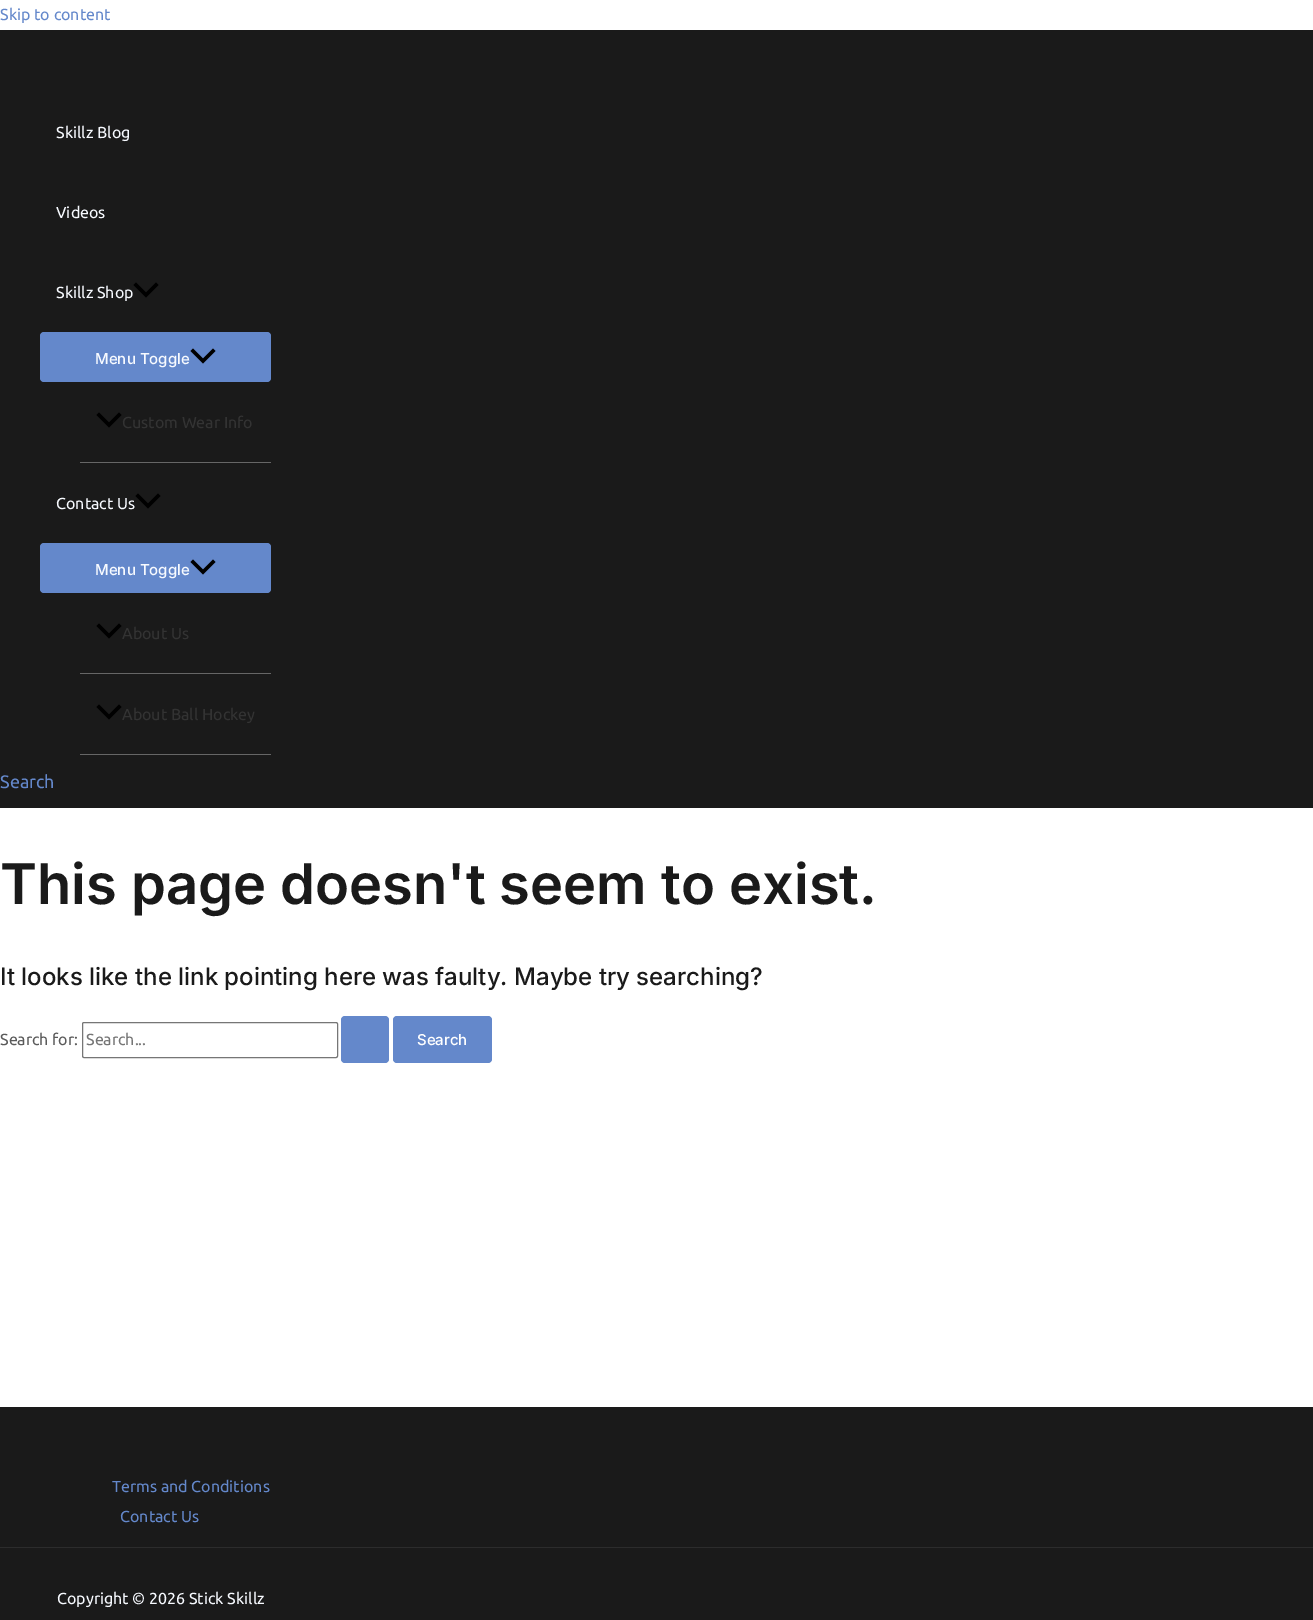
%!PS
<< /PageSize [1313 1620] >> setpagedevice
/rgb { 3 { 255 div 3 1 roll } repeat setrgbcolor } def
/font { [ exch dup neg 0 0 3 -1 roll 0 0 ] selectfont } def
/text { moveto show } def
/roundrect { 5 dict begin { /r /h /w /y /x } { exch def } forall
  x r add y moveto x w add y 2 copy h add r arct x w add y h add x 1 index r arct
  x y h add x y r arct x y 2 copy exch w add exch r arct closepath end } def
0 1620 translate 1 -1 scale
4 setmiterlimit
255 255 255 rgb
0 0 1313 1620 rectfill
26 26 26 rgb
0 30 1313 778 rectfill
0 0 0 rgb
133.5 285 moveto 12.5 12.5 rlineto 12.5 -12.5 rlineto -2.5 -2.5 rlineto -10 10 rlineto -10 -10 rlineto closepath fill
100 136 203 rgb
40 332 231 50 4 roundrect fill
0 0 0 rgb
190.5 351 moveto 12.5 12.5 rlineto 12.5 -12.5 rlineto -2.5 -2.5 rlineto -10 10 rlineto -10 -10 rlineto closepath fill
102 102 102 rgb
80 462 191 1 rectfill
0 0 0 rgb
96.5 415 moveto 12.5 12.5 rlineto 12.5 -12.5 rlineto -2.5 -2.5 rlineto -10 10 rlineto -10 -10 rlineto closepath fill
135.5 496 moveto 12.5 12.5 rlineto 12.5 -12.5 rlineto -2.5 -2.5 rlineto -10 10 rlineto -10 -10 rlineto closepath fill
100 136 203 rgb
40 543 231 50 4 roundrect fill
0 0 0 rgb
190.5 562 moveto 12.5 12.5 rlineto 12.5 -12.5 rlineto -2.5 -2.5 rlineto -10 10 rlineto -10 -10 rlineto closepath fill
102 102 102 rgb
80 673 191 1 rectfill
0 0 0 rgb
96.5 626 moveto 12.5 12.5 rlineto 12.5 -12.5 rlineto -2.5 -2.5 rlineto -10 10 rlineto -10 -10 rlineto closepath fill
102 102 102 rgb
80 754 191 1 rectfill
0 0 0 rgb
96.5 707 moveto 12.5 12.5 rlineto 12.5 -12.5 rlineto -2.5 -2.5 rlineto -10 10 rlineto -10 -10 rlineto closepath fill
118 118 118 rgb
82.5 1022.5 255 35 1.5 roundrect stroke
100 136 203 rgb
341 1016 48 47 4 roundrect fill
393 1016 99 47 4 roundrect fill
26 26 26 rgb
0 1407 1313 213 rectfill
44 44 44 rgb
0 1547 1313 1 rectfill
/Ubuntu-Regular 16 font
100 136 203 rgb
(Skip to content) 0 20 text
247 250 255 rgb
(Skillz Blog) 56 138 text
(Videos) 56 218 text
(Skillz Shop) 56 298 text
/Inter-Medium 15 font
(Menu Toggle) 95 364 text
/Ubuntu-Regular 16 font
51 51 51 rgb
(Custom Wear Info) 122 428 text
247 250 255 rgb
(Contact Us) 56 509 text
/Inter-Medium 15 font
(Menu Toggle) 95 575 text
/Ubuntu-Regular 16 font
51 51 51 rgb
(About Us) 122 639 text
(About Ball Hockey) 122 720 text
/Ubuntu-Regular 18 font
100 136 203 rgb
(Search) 0 788 text
/Inter-SemiBold 56 font
26 26 26 rgb
(This page doesn't seem to exist.) 0 904 text
/Inter-Medium 24 font
(It looks like the link pointing here was faulty. Maybe try searching?) 0 985 text
/Ubuntu-Regular 16 font
90 90 90 rgb
(Search for:) 0 1045 text
117 117 117 rgb
(Search...) 86 1045 text
/Inter-Medium 15 font
255 255 255 rgb
(Search) 417 1045 text
/Ubuntu-Regular 16 font
100 136 203 rgb
(Terms and Conditions) 112 1492 text
(Contact Us) 120 1522 text
247 250 255 rgb
(Copyright © 2026 Stick Skillz) 57 1604 text
showpage
